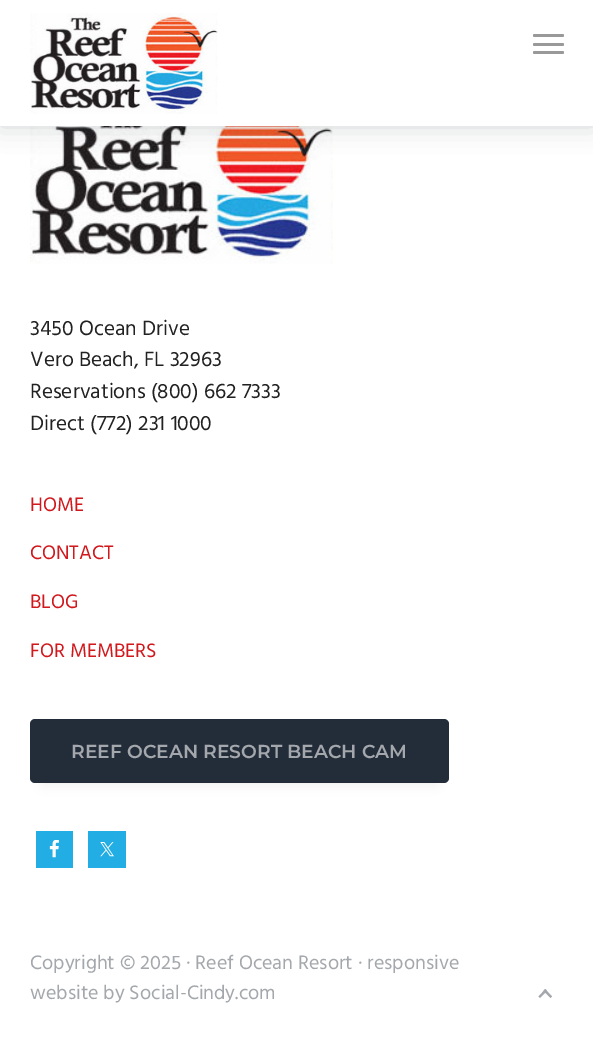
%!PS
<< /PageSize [593 1038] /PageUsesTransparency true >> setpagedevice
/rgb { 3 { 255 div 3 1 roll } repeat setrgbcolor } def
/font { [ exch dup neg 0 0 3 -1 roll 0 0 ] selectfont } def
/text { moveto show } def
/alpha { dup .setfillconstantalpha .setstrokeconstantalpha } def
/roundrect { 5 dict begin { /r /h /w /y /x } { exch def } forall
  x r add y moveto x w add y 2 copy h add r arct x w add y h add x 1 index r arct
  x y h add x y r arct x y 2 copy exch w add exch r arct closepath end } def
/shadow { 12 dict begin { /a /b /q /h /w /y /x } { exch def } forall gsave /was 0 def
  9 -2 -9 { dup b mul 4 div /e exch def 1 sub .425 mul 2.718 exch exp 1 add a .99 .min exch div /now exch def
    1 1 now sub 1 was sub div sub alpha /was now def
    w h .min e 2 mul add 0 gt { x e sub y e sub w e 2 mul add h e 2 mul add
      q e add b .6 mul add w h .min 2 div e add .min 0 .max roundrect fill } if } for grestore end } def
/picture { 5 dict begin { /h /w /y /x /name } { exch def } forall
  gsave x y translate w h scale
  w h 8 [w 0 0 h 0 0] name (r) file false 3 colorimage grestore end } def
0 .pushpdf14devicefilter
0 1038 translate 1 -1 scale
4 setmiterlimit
255 255 255 rgb
0 0 593 1038 rectfill
(img_02.rgb) 30 126 303 138 picture
35 44 57 rgb
0 0 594 126 0 12.5 0.2 shadow
255 255 255 rgb
0 0 593 126 rectfill
(img_01.rgb) 30 13 188 101 picture
153 153 153 rgb
533 43 31 3 1.5 roundrect fill
533 34 31 3 1.5 roundrect fill
533 51 31 3 1.5 roundrect fill
35 44 57 rgb
43 744 393 39 0 6 0.1 shadow
30 719 419 64 5 roundrect fill
34 173 228 rgb
36 831 37 37 rectfill
(img_03.rgb) 49 840 10 18 picture
88 831 38 37 rectfill
(img_04.rgb) 100 842 14 15 picture
164 168 172 rgb
538.5 996.5 moveto 7 -7.5 rlineto 1.5 2 rlineto -7 7 rlineto closepath fill
545 989 moveto 7 7.5 rlineto -1.5 1.5 rlineto -7 -7 rlineto closepath fill
/Hind-Regular 21.25 font
34 34 34 rgb
(3450 Ocean Drive) 30 335 text
(Vero Beach, FL 32963) 30 366 text
(Reservations \(800\) 662 7333) 30 398 text
(Direct \(772\) 231 1000) 30 430 text
/Hind-Regular 20 font
208 24 29 rgb
(HOME) 30 511 text
(CONTACT) 30 559 text
(BLOG) 30 608 text
(FOR MEMBERS) 30 657 text
/Montserrat-Thin 18.75 font
164 168 172 rgb
(REEF OCEAN RESORT BEACH CAM) 71 758 text
/Hind-Regular 20 font
(Copyright © 2025 · Reef Ocean Resort · responsive) 30 969 text
(website by Social-Cindy.com) 30 999 text
.poppdf14devicefilter showpage
